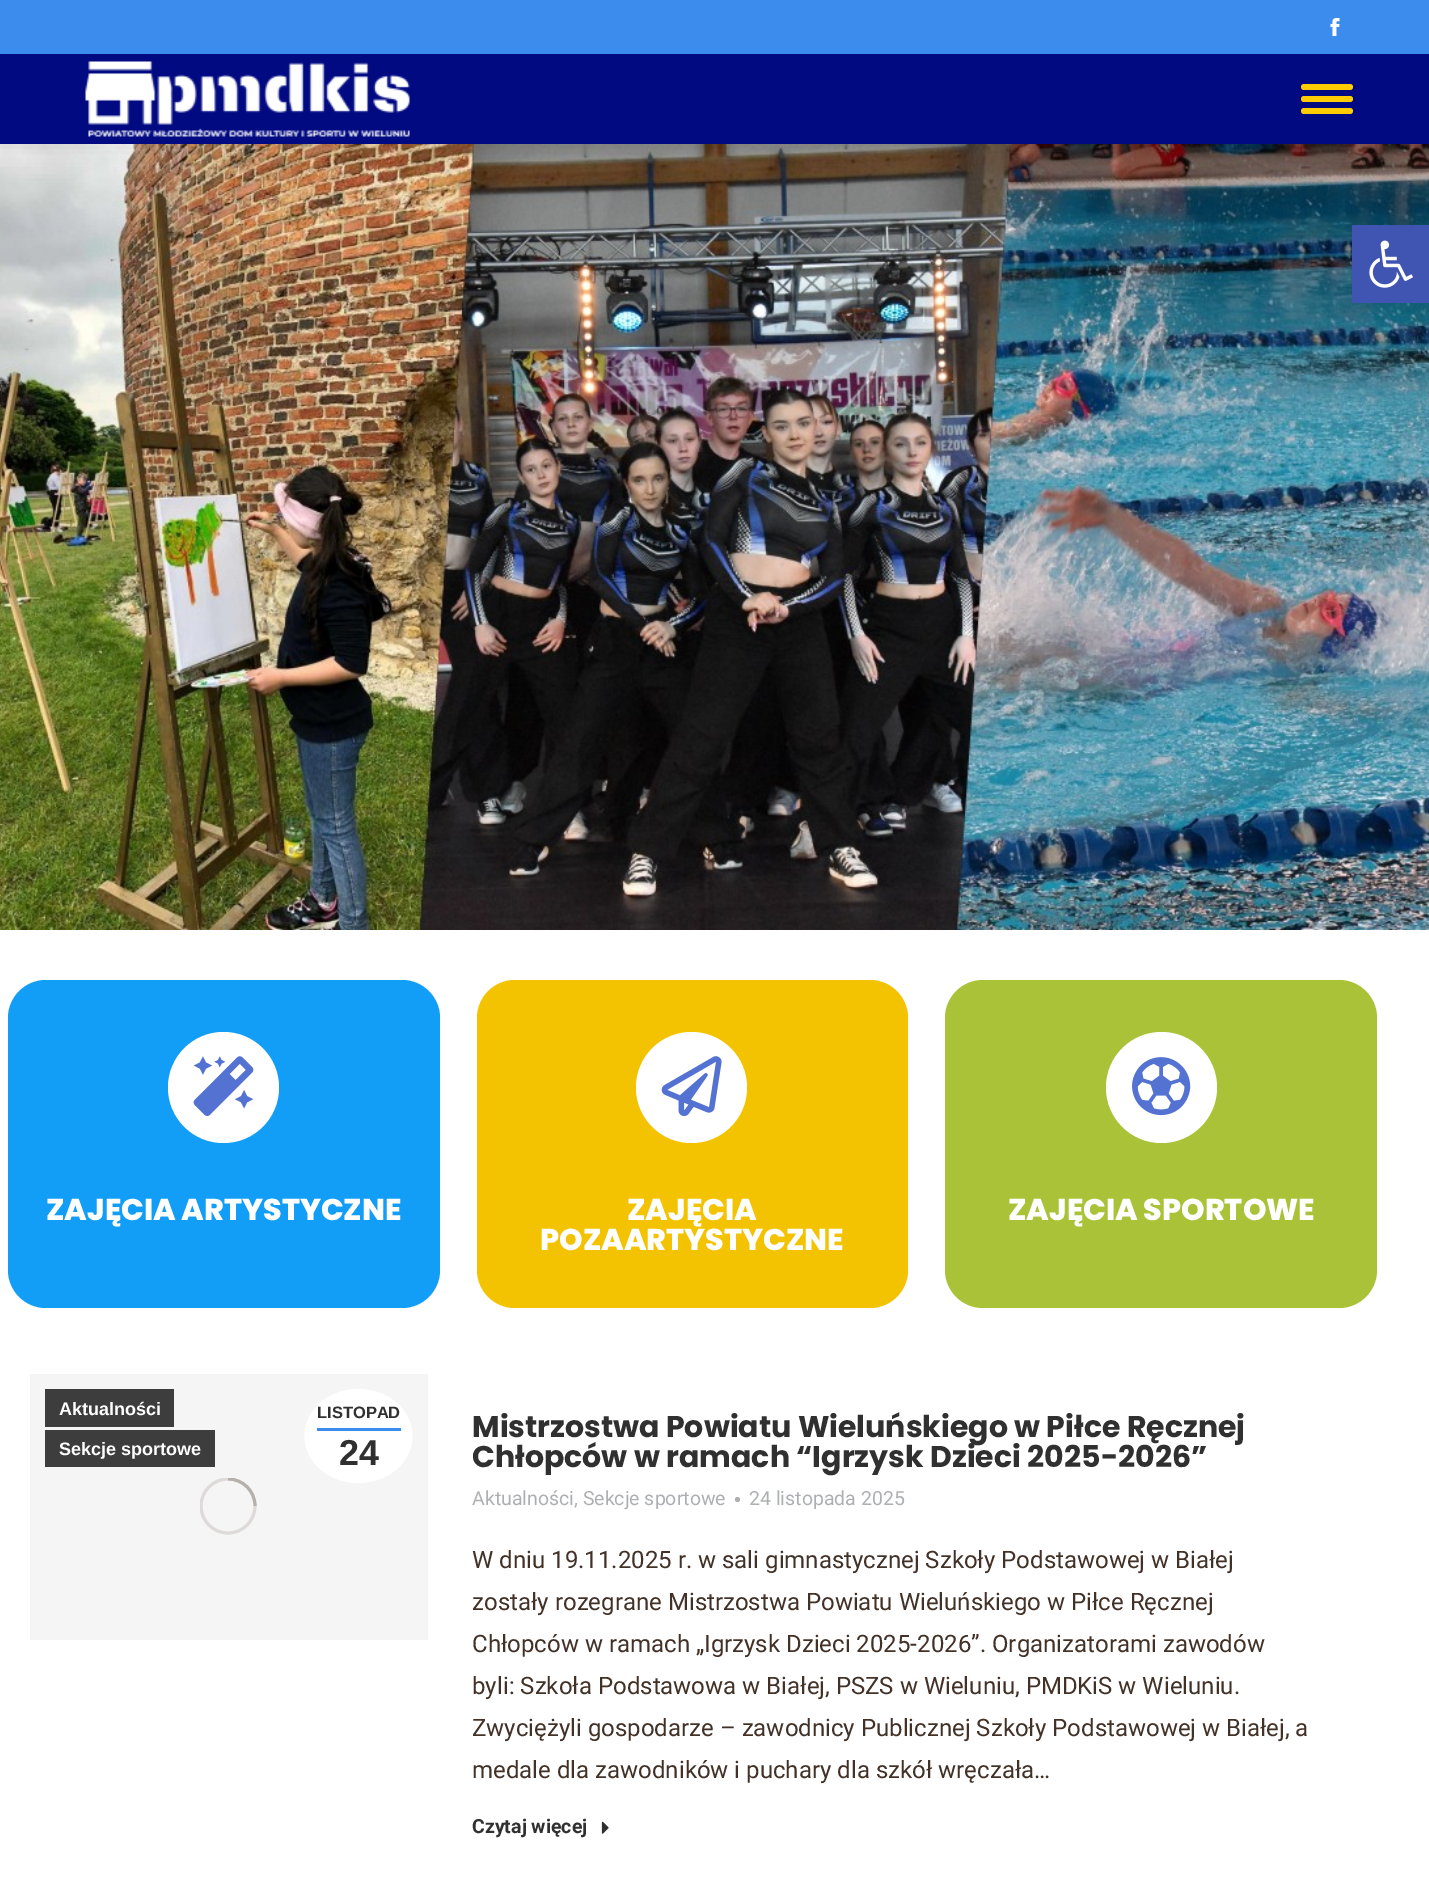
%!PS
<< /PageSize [1429 1881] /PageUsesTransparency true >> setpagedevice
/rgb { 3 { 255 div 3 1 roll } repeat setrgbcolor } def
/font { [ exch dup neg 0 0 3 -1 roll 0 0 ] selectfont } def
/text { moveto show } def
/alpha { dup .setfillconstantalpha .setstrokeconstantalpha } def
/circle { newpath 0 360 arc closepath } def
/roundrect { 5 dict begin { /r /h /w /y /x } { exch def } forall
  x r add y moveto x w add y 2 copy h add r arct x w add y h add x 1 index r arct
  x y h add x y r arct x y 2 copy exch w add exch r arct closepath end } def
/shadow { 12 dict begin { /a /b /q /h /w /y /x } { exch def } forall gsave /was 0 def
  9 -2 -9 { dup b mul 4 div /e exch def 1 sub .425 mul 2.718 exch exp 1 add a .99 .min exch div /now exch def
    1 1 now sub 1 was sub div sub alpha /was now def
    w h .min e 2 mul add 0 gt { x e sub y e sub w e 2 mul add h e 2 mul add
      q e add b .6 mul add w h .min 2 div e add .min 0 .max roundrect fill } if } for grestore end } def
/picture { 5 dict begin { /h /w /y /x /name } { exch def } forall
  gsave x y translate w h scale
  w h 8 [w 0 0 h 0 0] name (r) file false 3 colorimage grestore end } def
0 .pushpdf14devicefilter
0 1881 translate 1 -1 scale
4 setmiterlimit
255 255 255 rgb
0 0 1429 1881 rectfill
(img_04.rgb) 0 144 1429 786 picture
0 0 0 rgb
1352 225 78 78 0 7.5 0.1 shadow
64 84 178 rgb
1352 225 77 78 rectfill
(img_01.rgb) 1369 240 44 48 picture
0 0 0 rgb
-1 -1 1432 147 0 11 0.07 shadow
1 10 129 rgb
0 54 1429 90 rectfill
59 140 237 rgb
0 0 1429 54 rectfill
(img_02.rgb) 1330 18 10 18 picture
(img_03.rgb) 85 61 325 76 picture
255 204 0 rgb
1301 84 52 6 3 roundrect fill
1301 96 52 6 3 roundrect fill
1301 108 52 6 3 roundrect fill
18 158 246 rgb
8 980 432 328 38 roundrect fill
255 255 255 rgb
223.5 1087.5 55.5 circle fill
(img_05.rgb) 193 1056 61 60 picture
243 195 1 rgb
477 980 431 328 38 roundrect fill
255 255 255 rgb
691.5 1087.5 55.5 circle fill
(img_06.rgb) 661 1056 61 61 picture
169 194 56 rgb
945 980 432 328 38 roundrect fill
255 255 255 rgb
1161.5 1087.5 55.5 circle fill
(img_07.rgb) 1132 1057 59 59 picture
246 245 245 rgb
30 1374 398 266 rectfill
gsave
200 1478 57 57 rectclip
221 218 217 rgb
3 setlinewidth
228 1506 27 circle stroke
0.25 alpha
66 49 39 rgb
255 1506 moveto 0 -15 -12 -27 -27 -27 rcurveto stroke
grestore
62 61 61 rgb
45 1389 129 38 rectfill
45 1430 170 37 rectfill
255 255 255 rgb
358.5 1389 moveto 30 0 54 21 54 47 rcurveto 0 26 -24 47 -54 47 rcurveto -30 0 -54 -21 -54 -47 rcurveto 0 -26 24 -47 54 -47 rcurveto closepath fill
59 140 237 rgb
317 1428 84 3 rectfill
173 175 179 rgb
737.5 1499.5 2.5 circle fill
(img_08.rgb) 601 1821 8 13 picture
/Poppins-ExtraBold 30 font
255 255 255 rgb
(ZAJĘCIA ARTYSTYCZNE) 46 1220 text
(ZAJĘCIA) 627 1220 text
(POZAARTYSTYCZNE) 540 1250 text
(ZAJĘCIA SPORTOWE) 1008 1220 text
/LiberationSans-Bold 18 font
(Aktualności) 59 1415 text
(Sekcje sportowe) 59 1455 text
/LiberationSans-Bold 16.5 font
48 48 48 rgb
(LISTOPAD) 317 1418 text
/LiberationSans-Bold 36 font
(24) 339 1465 text
/Poppins-Bold 30 font
(Mistrzostwa Powiatu Wieluńskiego w Piłce Ręcznej) 472 1437 text
(Chłopców w ramach “Igrzysk Dzieci 2025-2026”) 472 1467 text
/Roboto-Regular 19.5 font
173 175 179 rgb
(Aktualności, Sekcje sportowe) 472 1505 text
(24 listopada 2025) 749 1505 text
/Roboto-Regular 24 font
66 49 39 rgb
(W dniu 19.11.2025 r. w sali gimnastycznej Szkoły Podstawowej w Białej) 472 1568 text
(zostały rozegrane Mistrzostwa Powiatu Wieluńskiego w Piłce Ręcznej) 472 1610 text
(Chłopców w ramach „Igrzysk Dzieci 2025-2026”. Organizatorami zawodów) 472 1652 text
(byli: Szkoła Podstawowa w Białej, PSZS w Wieluniu, PMDKiS w Wieluniu.) 472 1694 text
(Zwyciężyli gospodarze – zawodnicy Publicznej Szkoły Podstawowej w Białej, a) 472 1736 text
(medale dla zawodników i puchary dla szkół wręczała…) 472 1778 text
/Roboto-Bold 19.5 font
48 48 48 rgb
(Czytaj więcej) 472 1833 text
.poppdf14devicefilter showpage
